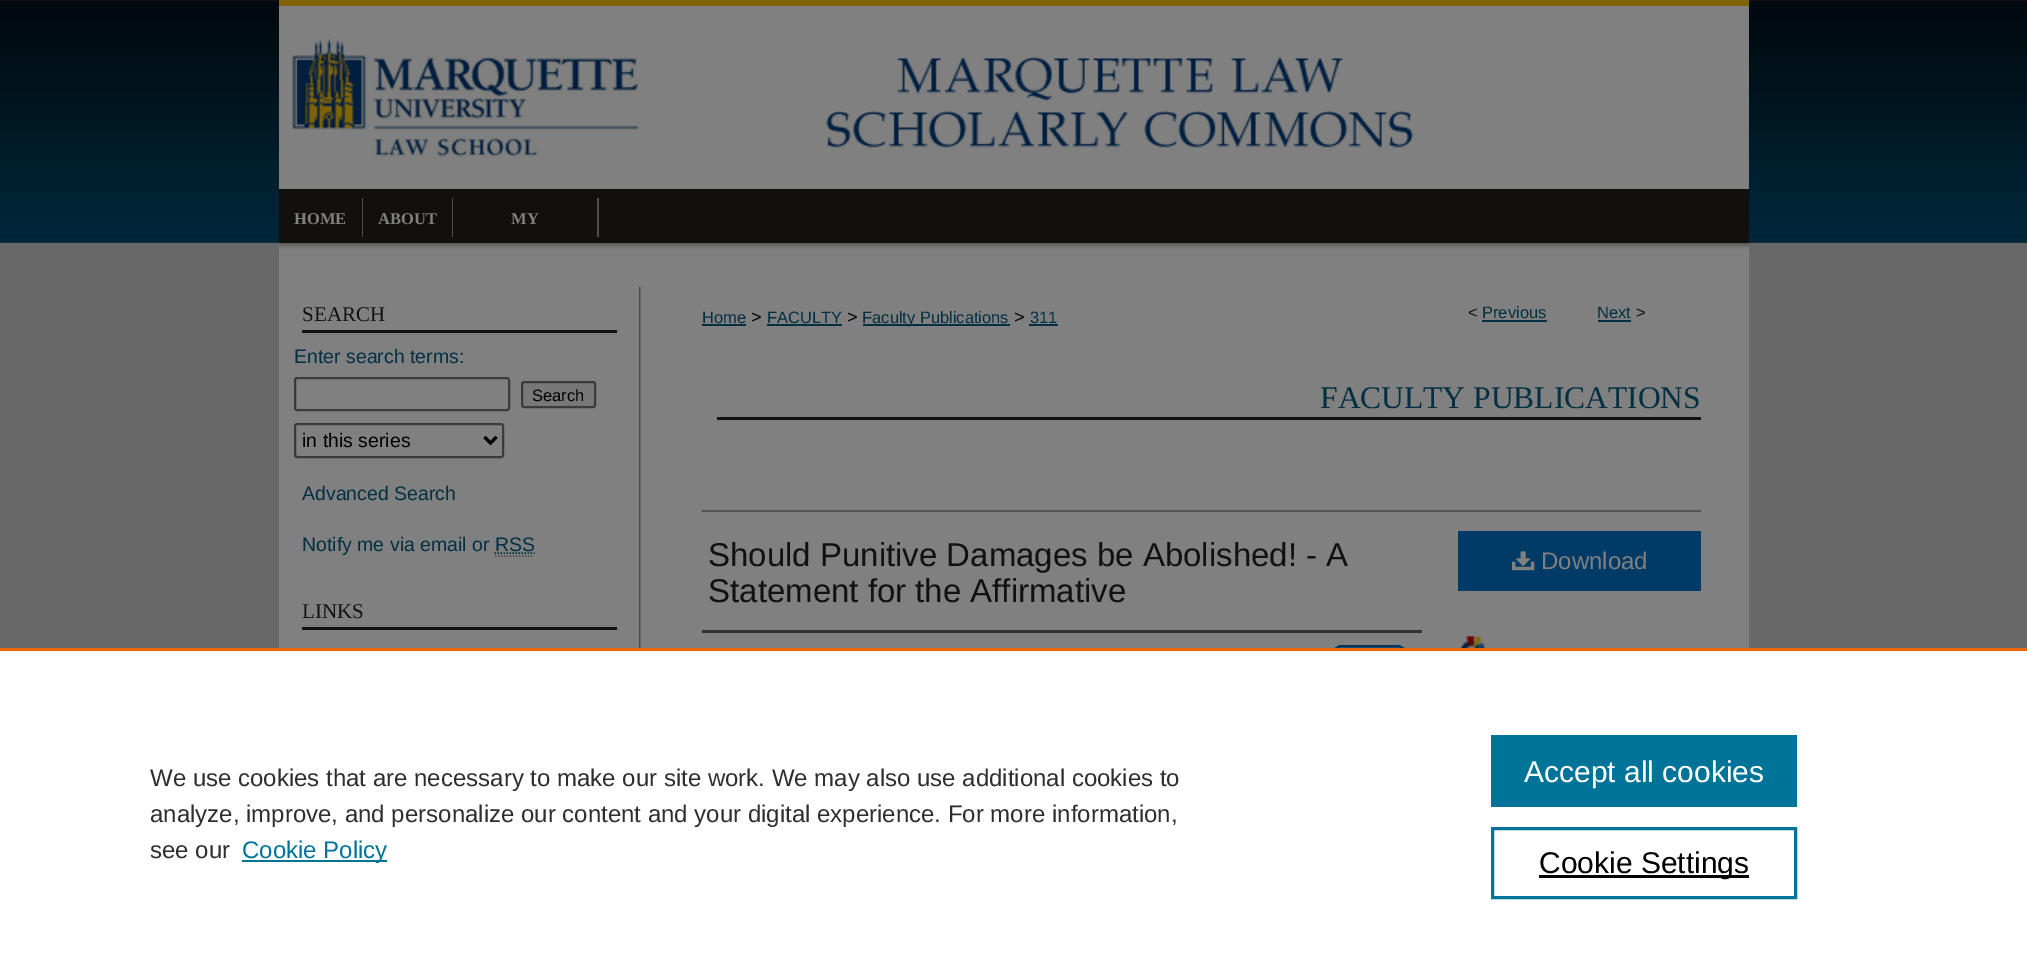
%!PS
<< /PageSize [2027 977] /PageUsesTransparency true >> setpagedevice
/rgb { 3 { 255 div 3 1 roll } repeat setrgbcolor } def
/font { [ exch dup neg 0 0 3 -1 roll 0 0 ] selectfont } def
/text { moveto show } def
/alpha { dup .setfillconstantalpha .setstrokeconstantalpha } def
/roundrect { 5 dict begin { /r /h /w /y /x } { exch def } forall
  x r add y moveto x w add y 2 copy h add r arct x w add y h add x 1 index r arct
  x y h add x y r arct x y 2 copy exch w add exch r arct closepath end } def
/picture { 5 dict begin { /h /w /y /x /name } { exch def } forall
  gsave x y translate w h scale
  w h 8 [w 0 0 h 0 0] name (r) file false 3 colorimage grestore end } def
0 .pushpdf14devicefilter
0 977 translate 1 -1 scale
4 setmiterlimit
104 104 104 rgb
0 0 2027 977 rectfill
(img_01.rgb) 0 0 2027 243 picture
128 128 128 rgb
279 6 1470 183 rectfill
128 99 6 rgb
279 0 1470 6 rectfill
(img_02.rgb) 292 38 347 119 picture
(img_03.rgb) 826 56 588 92 picture
18 16 13 rgb
279 189 1470 54 rectfill
(img_04.rgb) 279 243 1470 6 picture
128 128 128 rgb
279 249 1470 399 rectfill
77 77 77 rgb
362 198 1 39 rectfill
452 198 1 39 rectfill
597 198 2 39 rectfill
(img_05.rgb) 639 286 2 362 picture
18 18 18 rgb
302 330 315 3 rectfill
59 59 59 rgb
2 setlinewidth
295 378 214 32 2 roundrect stroke
120 120 120 rgb
522 382 73 25 2 roundrect gsave fill grestore
59 59 59 rgb
stroke
295 424 208 33 2 roundrect stroke
0 0 0 rgb
3 setlinewidth
484.5 437 moveto 6 6 rlineto 6 -6 rlineto stroke
2 47 65 rgb
1.5 setlinewidth
[1.5 1.5] 0 setdash
494.5 553 moveto 40 0 rlineto stroke
18 18 18 rgb
302 627 315 3 rectfill
2 47 65 rgb
702 324 44 2 rectfill
767 324 75 2 rectfill
863 324 147 2 rectfill
1029 324 29 2 rectfill
1482 320 65 2 rectfill
1598 320 33 2 rectfill
18 18 18 rgb
717 417 984 3 rectfill
85 85 85 rgb
702 510 999 2 rectfill
51 51 51 rgb
702 630 720 3 rectfill
0 58 102 rgb
1335 645 69 26 6 roundrect fill
gsave
1335 645 69 26 6 roundrect clip newpath
gsave 1335 647 moveto 69 0 rlineto 0 1 rlineto -69 0 rlineto closepath clip newpath
<< /ShadingType 2 /ColorSpace /DeviceRGB /Coords [1370 647 1370 669] /Extend [true true] /Function << /FunctionType 2 /Domain [0 1] /C0 [0 0.267 0.4] /C1 [0 0.169 0.4] /N 1 >> >> shfill grestore
grestore
0.2 alpha
128 128 128 rgb
1341 648 moveto 47 0 rlineto 12 0 14 -2 14 9 rcurveto 0 10 rlineto 1 -1 1 -2 1 -3 rcurveto 0 -12 rlineto 0 -3 -2 -5 -5 -5 rcurveto -56 0 rlineto -2 0 -3 1 -4 2 rcurveto closepath fill
0.1 alpha
0 0 0 rgb
[] 0 setdash
1337.5 668 moveto -3 -2.5 -1.5 -7 -1.5 -10 rcurveto 0 -13.5 0.5 -12 14.5 -12 rcurveto 38 0 rlineto 14 0 14.5 -1.5 14.5 12 rcurveto 0 3 1.5 7.5 -1.5 10 rcurveto stroke
1 alpha
0 58 102 rgb
1458 531 243 60 rectfill
(img_06.rgb) 1512 551 23 20 picture
(img_07.rgb) 1461 636 24 12 picture
255 255 255 rgb
0 651 2027 326 rectfill
235 101 0 rgb
0 648 2027 3 rectfill
0 115 152 rgb
242 860 145 2 rectfill
1491 735 306 72 rectfill
3 setlinewidth
1492.5 828.5 303 69 rectstroke
0 0 0 rgb
1539 875 210 3 rectfill
/LiberationSerif-Bold 16.5 font
128 128 128 rgb
(HOME) 294 224 text
(ABOUT) 378 224 text
(MY) 511 224 text
/LiberationSerif-Regular 21 font
17 17 17 rgb
(SEARCH) 302 321 text
/LiberationSans-Regular 19.5 font
2 47 65 rgb
(Enter search terms:) 294 363 text
/LiberationSans-Regular 16.5 font
0 0 0 rgb
(Search) 532 401 text
/LiberationSans-Regular 19.5 font
(in this series) 302 447 text
2 47 65 rgb
(Advanced Search) 302 500 text
(Notify me via email or RSS) 302 551 text
77 77 77 rgb
1.5 setlinewidth
[1.5 1.5] 0 setdash
495 556 moveto 39 0 rlineto stroke
/LiberationSerif-Regular 21 font
17 17 17 rgb
(LINKS) 302 618 text
/LiberationSans-Regular 16.5 font
2 47 65 rgb
(Home) 702 323 text
/LiberationSans-Regular 18 font
0 0 0 rgb
(>) 751 323 text
/LiberationSans-Regular 16.5 font
2 47 65 rgb
(FACULTY) 767 323 text
/LiberationSans-Regular 18 font
0 0 0 rgb
(>) 847 323 text
/LiberationSans-Regular 16.5 font
2 47 65 rgb
(Faculty Publications) 862 323 text
/LiberationSans-Regular 18 font
0 0 0 rgb
(>) 1014 323 text
/LiberationSans-Regular 16.5 font
2 47 65 rgb
(311) 1030 323 text
17 17 17 rgb
(<) 1468 318 text
2 47 65 rgb
(Previous) 1482 318 text
(Next) 1597 318 text
17 17 17 rgb
(>) 1636 318 text
/LiberationSerif-Regular 31.5 font
2 47 65 rgb
(FACULTY PUBLICATIONS) 1320 408 text
/LiberationSans-Regular 33 font
17 17 17 rgb
(Should Punitive Damages be Abolished! - A) 708 566 text
(Statement for the Affirmative) 708 602 text
/LiberationSans-Regular 24 font
128 128 128 rgb
(Download) 1541 569 text
46 46 46 rgb
(We use cookies that are necessary to make our site work. We may also use additional cookies to) 150 786 text
(analyze, improve, and personalize our content and your digital experience. For more information,) 150 822 text
(see our) 150 858 text
0 115 152 rgb
(Cookie Policy) 242 858 text
/LiberationSans-Regular 30 font
255 255 255 rgb
(Accept all cookies) 1524 782 text
0 0 0 rgb
(Cookie Settings) 1539 873 text
.poppdf14devicefilter showpage
